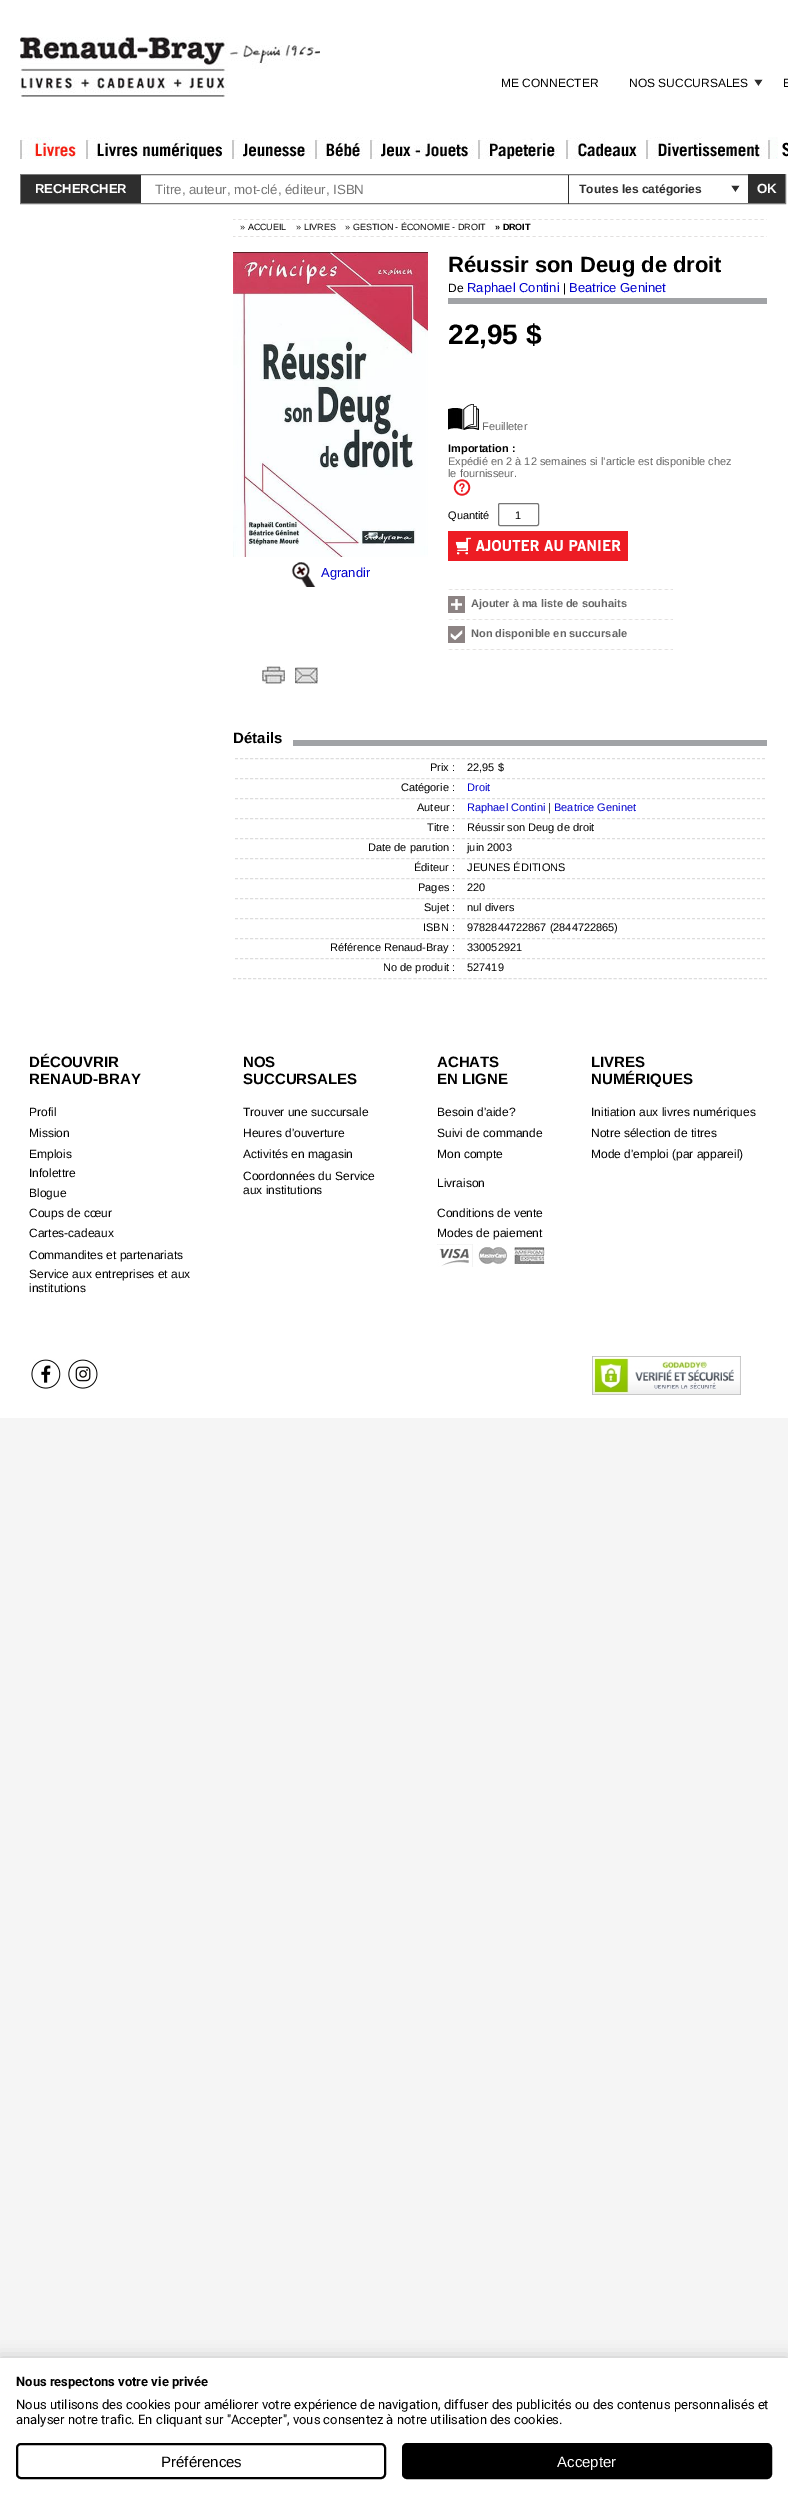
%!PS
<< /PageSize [788 2495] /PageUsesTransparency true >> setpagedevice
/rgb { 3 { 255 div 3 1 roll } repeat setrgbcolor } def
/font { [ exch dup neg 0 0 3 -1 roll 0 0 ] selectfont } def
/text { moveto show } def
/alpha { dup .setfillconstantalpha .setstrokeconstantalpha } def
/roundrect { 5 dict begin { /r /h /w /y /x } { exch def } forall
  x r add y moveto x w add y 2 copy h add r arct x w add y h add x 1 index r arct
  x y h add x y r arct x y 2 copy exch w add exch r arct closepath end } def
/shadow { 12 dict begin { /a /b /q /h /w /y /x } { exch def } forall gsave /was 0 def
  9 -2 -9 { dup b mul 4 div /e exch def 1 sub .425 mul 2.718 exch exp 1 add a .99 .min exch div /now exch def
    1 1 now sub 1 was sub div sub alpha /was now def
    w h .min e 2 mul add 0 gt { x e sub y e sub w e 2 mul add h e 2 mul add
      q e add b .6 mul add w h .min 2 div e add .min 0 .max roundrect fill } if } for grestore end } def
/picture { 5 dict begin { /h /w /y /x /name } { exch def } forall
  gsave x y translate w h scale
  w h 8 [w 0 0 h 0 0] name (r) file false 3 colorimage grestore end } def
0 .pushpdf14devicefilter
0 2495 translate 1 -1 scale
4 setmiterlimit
245 245 245 rgb
0 0 788 2495 rectfill
255 255 255 rgb
0 0 788 1418 rectfill
(img_01.rgb) 20 37 300 60 picture
(img_02.rgb) 754 79 9 7 picture
0 0 0 rgb
0 2358 788 137 0 8 0.2 shadow
255 255 255 rgb
0 2358 788 137 rectfill
0 0 0 rgb
2 setlinewidth
17 2444 368 34 4 roundrect stroke
403 2444 368 34 4 roundrect gsave fill grestore
stroke
(img_03.rgb) 20 137 56 22 picture
(img_04.rgb) 86 137 136 22 picture
(img_05.rgb) 232 138 79 21 picture
(img_06.rgb) 315 137 48 22 picture
(img_07.rgb) 370 138 104 21 picture
(img_08.rgb) 478 138 80 21 picture
(img_09.rgb) 566 137 72 22 picture
(img_10.rgb) 646 137 120 22 picture
(img_11.rgb) 768 137 20 22 picture
121 121 121 rgb
1 setlinewidth
20.5 174.5 765 29 rectstroke
46 46 46 rgb
21 175 120 28 rectfill
568 175 1 29 rectfill
(img_02.rgb) 731 185 9 7 picture
748 174 37 29 rectfill
(img_12.rgb) 233 219 534 1 picture
(img_12.rgb) 233 236 534 1 picture
(img_13.rgb) 233 252 195 305 picture
(img_14.rgb) 291 562 25 25 picture
161 163 166 rgb
448 298 319 6 rectfill
(img_15.rgb) 448 404 31 26 picture
(img_16.rgb) 453 479 18 17 picture
118 118 118 rgb
498.5 503.5 40 22 1.5 roundrect stroke
(img_17.rgb) 448 531 180 30 picture
(img_18.rgb) 448 589 225 1 picture
(img_19.rgb) 448 596 17 17 picture
(img_18.rgb) 448 619 225 1 picture
(img_20.rgb) 448 626 17 17 picture
(img_18.rgb) 448 649 225 1 picture
(img_21.rgb) 262 666 23 18 picture
(img_22.rgb) 295 667 23 17 picture
161 163 166 rgb
293 740 474 6 rectfill
221 221 221 rgb
[3 2.01] 0 setdash
233 978.5 moveto 534 0 rlineto stroke
[3 2.04] 0 setdash
235 758.5 moveto 230 0 rlineto stroke
[3 2] 0 setdash
467 758.5 moveto 298 0 rlineto stroke
[3 2.04] 0 setdash
235 778.5 moveto 230 0 rlineto stroke
[3 2] 0 setdash
467 778.5 moveto 298 0 rlineto stroke
[3 2.04] 0 setdash
235 798.5 moveto 230 0 rlineto stroke
[3 2] 0 setdash
467 798.5 moveto 298 0 rlineto stroke
[3 2.04] 0 setdash
235 818.5 moveto 230 0 rlineto stroke
[3 2] 0 setdash
467 818.5 moveto 298 0 rlineto stroke
[3 2.04] 0 setdash
235 838.5 moveto 230 0 rlineto stroke
[3 2] 0 setdash
467 838.5 moveto 298 0 rlineto stroke
[3 2.04] 0 setdash
235 858.5 moveto 230 0 rlineto stroke
[3 2] 0 setdash
467 858.5 moveto 298 0 rlineto stroke
[3 2.04] 0 setdash
235 878.5 moveto 230 0 rlineto stroke
[3 2] 0 setdash
467 878.5 moveto 298 0 rlineto stroke
[3 2.04] 0 setdash
235 898.5 moveto 230 0 rlineto stroke
[3 2] 0 setdash
467 898.5 moveto 298 0 rlineto stroke
[3 2.04] 0 setdash
235 918.5 moveto 230 0 rlineto stroke
[3 2] 0 setdash
467 918.5 moveto 298 0 rlineto stroke
[3 2.04] 0 setdash
235 938.5 moveto 230 0 rlineto stroke
[3 2] 0 setdash
467 938.5 moveto 298 0 rlineto stroke
[3 2.04] 0 setdash
235 958.5 moveto 230 0 rlineto stroke
[3 2] 0 setdash
467 958.5 moveto 298 0 rlineto stroke
(img_23.rgb) 437 1244 108 23 picture
(img_24.rgb) 31 1359 30 30 picture
(img_25.rgb) 68 1359 30 30 picture
(img_26.rgb) 592 1356 149 39 picture
/LiberationSans-Regular 12 font
0 0 0 rgb
(ME CONNECTER) 501 87 text
(NOS SUCCURSALES) 629 87 text
(E) 783 87 text
/Roboto-Bold 13 font
(Nous respectons votre vie privée) 16 2386 text
/Roboto-Regular 13 font
(Nous utilisons des cookies pour améliorer votre expérience de navigation, diffuser des publicités ou des contenus personnalisés et) 16 2409 text
(analyser notre trafic. En cliquant sur "Accepter", vous consentez à notre utilisation des cookies.) 16 2424 text
/LiberationSans-Regular 15 font
(Préférences) 161 2467 text
255 255 255 rgb
(Accepter) 557 2467 text
/LiberationSans-Bold 13 font
(RECHERCHER) 35 193 text
/LiberationSans-Regular 13.3 font
117 117 117 rgb
(Titre, auteur, mot-clé, éditeur, ISBN) 155 194 text
/LiberationSans-Bold 12 font
46 46 46 rgb
(Toutes les catégories) 579 193 text
/LiberationSans-Bold 13.3 font
255 255 255 rgb
(OK) 757 193 text
/LiberationSans-Regular 9 font
0 0 0 rgb
(» ACCUEIL) 240 230 text
(» LIVRES) 296 230 text
(» GESTION - ÉCONOMIE - DROIT) 345 230 text
/LiberationSans-Bold 9 font
(» DROIT) 495 230 text
/LiberationSans-Regular 13 font
0 0 204 rgb
(Agrandir) 321 577 text
/LiberationSans-Bold 22 font
0 0 0 rgb
(Réussir son Deug de droit) 448 272 text
/LiberationSans-Regular 12 font
(De) 448 292 text
/LiberationSans-Regular 13 font
0 0 204 rgb
(Raphael Contini) 467 292 text
/LiberationSans-Regular 12 font
0 0 0 rgb
(|) 563 292 text
/LiberationSans-Regular 13 font
0 0 204 rgb
(Beatrice Geninet) 569 292 text
/LiberationSans-Bold 28 font
0 0 0 rgb
(22,95 $) 448 344 text
/LiberationSans-Regular 11 font
102 102 102 rgb
(Feuilleter) 482 430 text
/LiberationSans-Bold 11 font
0 0 0 rgb
(Importation :) 448 452 text
/LiberationSans-Regular 11 font
102 102 102 rgb
(Expédié en 2 à 12 semaines si l’article est disponible chez) 448 465 text
(le fournisseur.) 448 477 text
0 0 0 rgb
(Quantité) 448 519 text
(1) 515 519 text
/LiberationSans-Bold 11 font
102 102 102 rgb
(Ajouter à ma liste de souhaits) 471 607 text
(Non disponible en succursale) 471 637 text
/LiberationSans-Bold 15 font
0 0 0 rgb
(Détails) 233 743 text
/LiberationSans-Regular 11 font
(Prix :) 430 771 text
(22,95 $) 467 771 text
(Catégorie :) 401 791 text
0 0 204 rgb
(Droit) 467 791 text
0 0 0 rgb
(Auteur :) 417 811 text
0 0 204 rgb
(Raphael Contini) 467 811 text
0 0 0 rgb
(|) 548 811 text
0 0 204 rgb
(Beatrice Geninet) 554 811 text
0 0 0 rgb
(Titre :) 427 831 text
(Réussir son Deug de droit) 467 831 text
(Date de parution :) 368 851 text
(juin 2003) 467 851 text
(Éditeur :) 414 871 text
(JEUNES ÉDITIONS) 467 871 text
(Pages :) 418 891 text
(220) 467 891 text
(Sujet :) 424 911 text
(nul divers) 467 911 text
(ISBN :) 423 931 text
(9782844722867 \(2844722865\)) 467 931 text
(Référence Renaud-Bray :) 330 951 text
(330052921) 467 951 text
(No de produit :) 383 971 text
(527419) 467 971 text
/LiberationSans-Bold 15 font
(DÉCOUVRIR) 29 1067 text
(RENAUD-BRAY) 29 1084 text
(NOS) 243 1067 text
(SUCCURSALES) 243 1084 text
(ACHATS) 437 1067 text
(EN LIGNE) 437 1084 text
(LIVRES) 591 1067 text
(NUMÉRIQUES) 591 1084 text
/LiberationSans-Regular 12 font
(Profil) 29 1116 text
(Trouver une succursale) 243 1116 text
(Besoin d'aide?) 437 1116 text
(Initiation aux livres numériques) 591 1116 text
(Mission) 29 1137 text
(Heures d'ouverture) 243 1137 text
(Suivi de commande) 437 1137 text
(Notre sélection de titres) 591 1137 text
(Emplois) 29 1158 text
(Activités en magasin) 243 1158 text
(Mon compte) 437 1158 text
(Mode d'emploi \(par appareil\)) 591 1158 text
(Infolettre) 29 1177 text
(Blogue) 29 1197 text
(Coordonnées du Service) 243 1180 text
(aux institutions) 243 1194 text
(Livraison) 437 1187 text
(Coups de cœur) 29 1217 text
(Conditions de vente) 437 1217 text
(Cartes-cadeaux) 29 1237 text
(Modes de paiement) 437 1237 text
(Commandites et partenariats) 29 1259 text
(Service aux entreprises et aux) 29 1278 text
(institutions) 29 1292 text
.poppdf14devicefilter showpage
